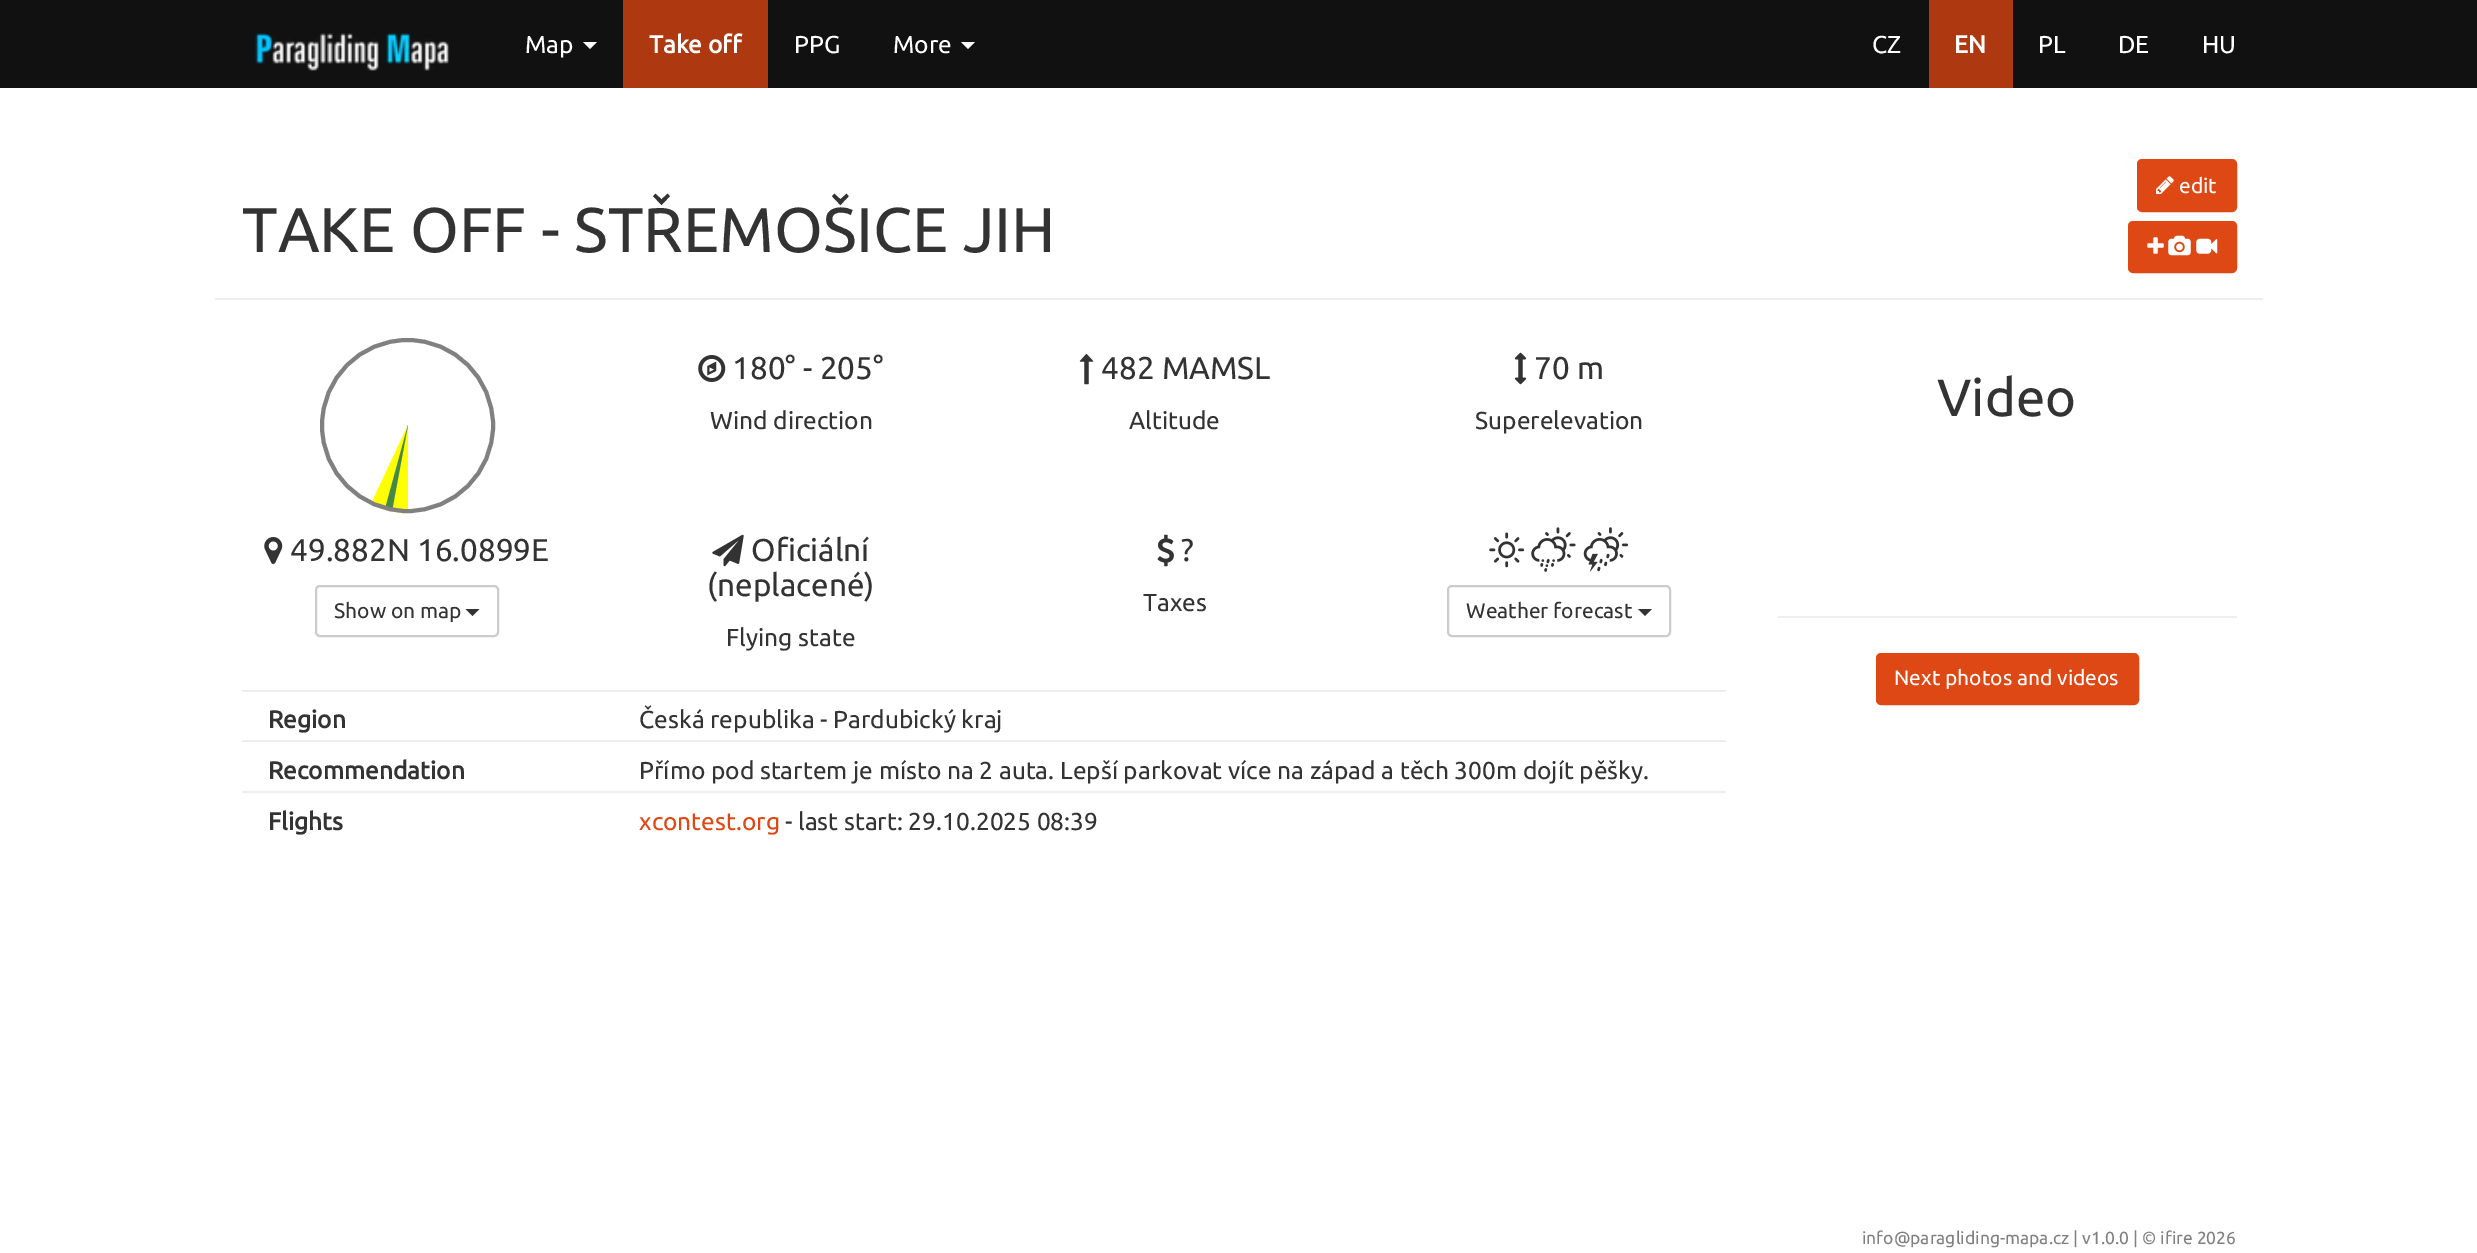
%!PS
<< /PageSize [2477 1253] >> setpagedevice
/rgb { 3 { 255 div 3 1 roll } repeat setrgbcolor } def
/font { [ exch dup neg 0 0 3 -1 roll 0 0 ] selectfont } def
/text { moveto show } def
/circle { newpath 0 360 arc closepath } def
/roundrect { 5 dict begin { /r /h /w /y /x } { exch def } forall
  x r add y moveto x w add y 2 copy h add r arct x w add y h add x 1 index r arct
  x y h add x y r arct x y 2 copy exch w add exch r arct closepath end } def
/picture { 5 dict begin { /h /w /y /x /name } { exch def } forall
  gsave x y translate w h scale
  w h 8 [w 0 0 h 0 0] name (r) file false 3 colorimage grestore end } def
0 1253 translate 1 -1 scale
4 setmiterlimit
255 255 255 rgb
0 0 2477 1253 rectfill
17 17 17 rgb
0 0 2477 88 rectfill
(img_01.rgb) 255 33 194 38 picture
255 255 255 rgb
583 42 moveto 14 0 rlineto -7 7 rlineto closepath fill
174 57 16 rgb
623 0 145 88 rectfill
255 255 255 rgb
961 42 moveto 14 0 rlineto -7 7 rlineto closepath fill
174 57 16 rgb
1929 0 84 88 rectfill
238 238 238 rgb
215 298 2048 2 rectfill
221 72 20 rgb
2138 160 98 51 4 roundrect gsave fill grestore
2 setlinewidth
stroke
(img_02.rgb) 2156 176 18 18 picture
2129 222 107 50 4 roundrect gsave fill grestore
stroke
(img_03.rgb) 2147 237 17 17 picture
(img_04.rgb) 2168 235 23 21 picture
(img_05.rgb) 2196 238 22 16 picture
255 255 0 rgb
408 425 moveto 0 88 rlineto -13 0 -26 -3 -37 -9 rcurveto closepath fill
70 136 71 rgb
408 425 moveto -16 86 rlineto -7 -2 rlineto closepath fill
128 128 128 rgb
4 setlinewidth
407.5 425.5 85.5 circle stroke
(img_06.rgb) 698 355 28 27 picture
(img_07.rgb) 1079 353 15 32 picture
(img_08.rgb) 1514 352 13 33 picture
(img_09.rgb) 264 537 19 27 picture
204 204 204 rgb
2 setlinewidth
316 586 182 50 4 roundrect stroke
51 51 51 rgb
465.5 609 moveto 14 0 rlineto -7 7 rlineto closepath fill
(img_10.rgb) 712 534 32 33 picture
(img_11.rgb) 1157 534 17 33 picture
(img_12.rgb) 1489 532 36 36 picture
(img_13.rgb) 1531 527 45 45 picture
(img_14.rgb) 1583 527 46 45 picture
204 204 204 rgb
1448 586 222 50 4 roundrect stroke
51 51 51 rgb
1638 609 moveto 14 0 rlineto -7 7 rlineto closepath fill
238 238 238 rgb
242 690 1484 2 rectfill
242 740 1484 2 rectfill
242 791 1484 2 rectfill
1778 616 459 2 rectfill
221 72 20 rgb
1877 654 261 50 4 roundrect gsave fill grestore
stroke
/Ubuntu-Regular 24.5 font
255 255 255 rgb
(Map) 525 53 text
/Ubuntu-Bold 24.5 font
(Take off) 649 53 text
/Ubuntu-Regular 24.5 font
(PPG) 794 53 text
(More) 893 53 text
(CZ) 1872 53 text
/Ubuntu-Bold 24.5 font
(EN) 1954 53 text
/Ubuntu-Regular 24.5 font
(PL) 2038 53 text
(DE) 2118 53 text
(HU) 2202 53 text
/Ubuntu-Regular 21 font
(edit) 2179 193 text
/Ubuntu-Regular 63 font
51 51 51 rgb
(TAKE OFF - STŘEMOŠICE JIH) 242 252 text
/Ubuntu-Regular 31.5 font
(180° - 205°) 732 379 text
/Ubuntu-Regular 24.5 font
(Wind direction) 710 429 text
/Ubuntu-Regular 31.5 font
(482 MAMSL) 1101 379 text
/Ubuntu-Regular 24.5 font
(Altitude) 1129 429 text
/Ubuntu-Regular 31.5 font
(70 m) 1534 379 text
/Ubuntu-Regular 24.5 font
(Superelevation) 1475 429 text
/Ubuntu-Regular 31.5 font
(49.882N 16.0899E) 290 561 text
/Ubuntu-Regular 21 font
(Show on map) 334 618 text
/Ubuntu-Regular 31.5 font
(Oficiální) 751 561 text
(\(neplacené\)) 707 596 text
/Ubuntu-Regular 24.5 font
(Flying state) 726 646 text
/Ubuntu-Regular 31.5 font
(?) 1181 561 text
/Ubuntu-Regular 24.5 font
(Taxes) 1143 611 text
/Ubuntu-Regular 21 font
(Weather forecast) 1466 618 text
/Ubuntu-Bold 24.5 font
(Region) 268 728 text
/Ubuntu-Regular 24.5 font
(Česká republika - Pardubický kraj) 639 728 text
/Ubuntu-Bold 24.5 font
(Recommendation) 268 779 text
/Ubuntu-Regular 24.5 font
(Přímo pod startem je místo na 2 auta. Lepší parkovat více na západ a těch 300m dojít pěšky.) 639 779 text
/Ubuntu-Bold 24.5 font
(Flights) 268 830 text
/Ubuntu-Regular 24.5 font
221 72 20 rgb
(xcontest.org) 639 830 text
51 51 51 rgb
(- last start: 29.10.2025 08:39) 785 830 text
/Ubuntu-Regular 52.5 font
(Video) 1937 416 text
/Ubuntu-Regular 21 font
255 255 255 rgb
(Next photos and videos) 1894 685 text
/Ubuntu-Regular 17.5 font
128 128 128 rgb
(info@paragliding-mapa.cz | v1.0.0 | © ifire 2026) 1862 1244 text
showpage
